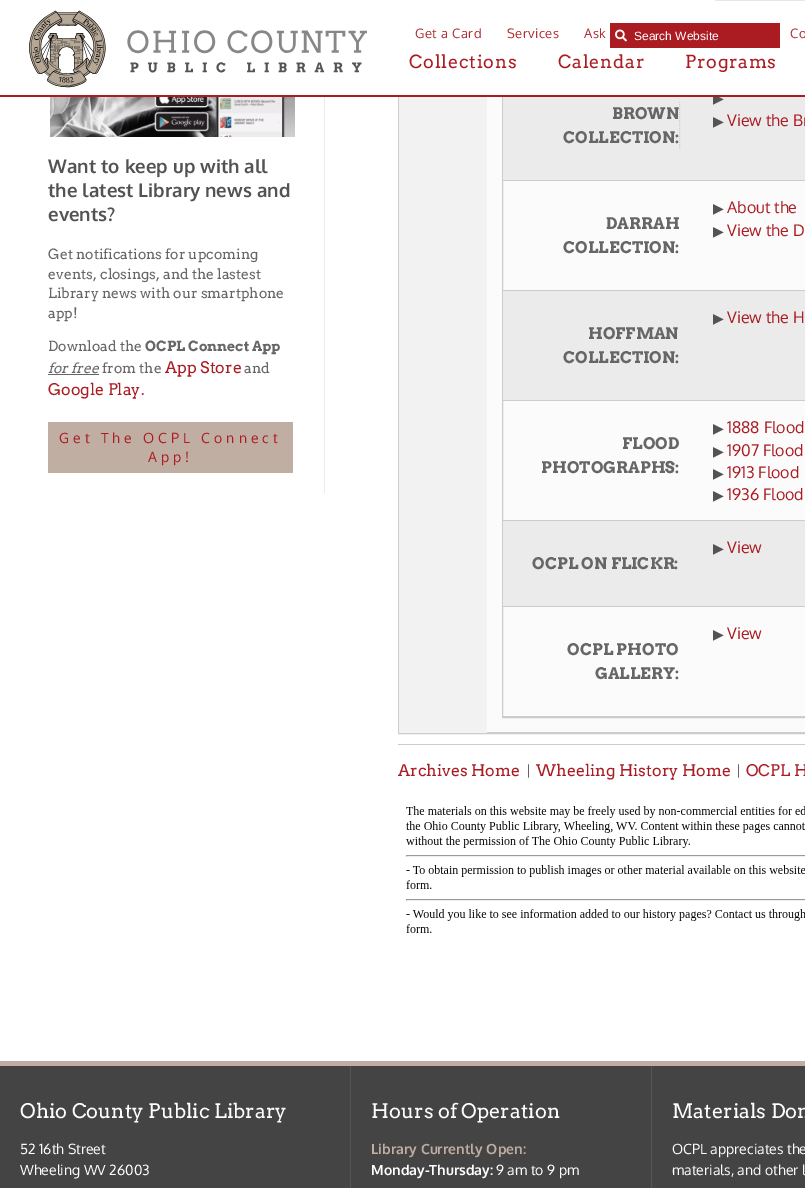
%!PS
<< /PageSize [805 1188] >> setpagedevice
/rgb { 3 { 255 div 3 1 roll } repeat setrgbcolor } def
/font { [ exch dup neg 0 0 3 -1 roll 0 0 ] selectfont } def
/text { moveto show } def
/picture { 5 dict begin { /h /w /y /x /name } { exch def } forall
  gsave x y translate w h scale
  w h 8 [w 0 0 h 0 0] name (r) file false 3 colorimage grestore end } def
0 1188 translate 1 -1 scale
4 setmiterlimit
255 255 255 rgb
0 0 805 1188 rectfill
(img_01.rgb) 29 10 338 78 picture
235 235 235 rgb
324 97 1 396 rectfill
(img_03.rgb) 50 97 245 40 picture
102 102 102 rgb
48 374 51 1 rectfill
193 174 163 rgb
48 422 245 51 rectfill
204 204 204 rgb
398.5 -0.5 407 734 rectstroke
251 251 251 rgb
487 97 318 635 rectfill
204 204 204 rgb
487 732 318 1 rectfill
242 242 242 rgb
399 97 88 636 rectfill
204 204 204 rgb
502.5 -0.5 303 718 rectstroke
235 235 235 rgb
503 97 302 83 rectfill
204 204 204 rgb
503 180 302 1 rectfill
[1 1] 0 setdash
679.5 102 moveto 0 48 rlineto stroke
503 290 302 1 rectfill
235 235 235 rgb
503 291 302 109 rectfill
204 204 204 rgb
503 400 302 1 rectfill
503 520 302 1 rectfill
235 235 235 rgb
503 521 302 85 rectfill
204 204 204 rgb
503 606 302 1 rectfill
503 716 302 1 rectfill
398 744 407 1 rectfill
(img_04.rgb) 406 806 399 127 picture
68 68 68 rgb
0 1066 805 122 rectfill
193 174 163 rgb
0 1061 805 5 rectfill
85 85 85 rgb
350 1066 1 122 rectfill
651 1066 1 122 rectfill
/Oxygen-Regular 13 font
177 46 52 rgb
790 38 moveto 0.5 0 (Co) ashow
/Oxygen-Bold 18.75 font
83 83 83 rgb
(Want to keep up with all) 48 173 text
(the latest Library news and) 48 197 text
(events?) 48 221 text
/Arvo-Regular 14 font
102 102 102 rgb
(Get notifications for upcoming) 48 259 text
(events, closings, and the lastest) 48 279 text
(Library news with our smartphone) 48 298 text
(app!) 48 318 text
(Download the) 48 351 text
/Arvo-Bold 14 font
(OCPL Connect App) 145 351 text
/Arvo-Italic 14 font
(for free) 48 373 text
/Arvo-Regular 14 font
(from the) 102 373 text
/Arvo-Regular 16 font
171 27 34 rgb
(App Store) 165 373 text
/Arvo-Regular 14 font
102 102 102 rgb
(and) 244 373 text
/Arvo-Regular 16 font
171 27 34 rgb
(Google Play.) 48 395 text
/Oxygen-Regular 14 font
59 443 moveto 4 0 (Get The OCPL Connect) ashow
148 462 moveto 4 0 (App!) ashow
/Arvo-Bold 16 font
102 102 102 rgb
(BROWN) 612 119 text
(COLLECTION:) 563 143 text
/DejaVuSans-Regular 14 font
83 83 83 rgb
(▶) 713 103 text
255 255 255 rgb
398 0 317 95 rectfill
171 27 34 rgb
610 23 170 25 rectfill
/LiberationSans-Regular 12 font
255 255 255 rgb
(Search Website) 634 40 text
(img_02.rgb) 615 29 12 13 picture
/Arvo-Regular 18 font
171 27 34 rgb
685 68 moveto 0.75 0 (Programs) ashow
558 68 moveto 0.75 0 (Calendar) ashow
409 68 moveto 0.75 0 (Collections) ashow
/Oxygen-Regular 13 font
177 46 52 rgb
584 38 moveto 0.5 0 (Ask) ashow
507 38 moveto 0.5 0 (Services) ashow
415 38 moveto 0.5 0 (Get a Card) ashow
171 27 34 rgb
0 95 805 2 rectfill
/DejaVuSans-Regular 14 font
83 83 83 rgb
(▶) 713 126 text
/Oxygen-Regular 16 font
171 27 34 rgb
(View the Br) 727 126 text
/Arvo-Bold 16 font
102 102 102 rgb
(DARRAH) 606 229 text
(COLLECTION:) 563 253 text
/DejaVuSans-Regular 14 font
83 83 83 rgb
(▶) 713 213 text
/Oxygen-Regular 16 font
171 27 34 rgb
(About the) 727 213 text
/DejaVuSans-Regular 14 font
83 83 83 rgb
(▶) 713 236 text
/Oxygen-Regular 16 font
171 27 34 rgb
(View the D) 727 236 text
/DejaVuSans-Regular 14 font
83 83 83 rgb
(▶) 713 323 text
/Oxygen-Regular 16 font
171 27 34 rgb
(View the H) 727 323 text
/Arvo-Bold 16 font
102 102 102 rgb
(HOFFMAN) 588 339 text
(COLLECTION:) 563 363 text
(FLOOD) 622 449 text
(PHOTOGRAPHS:) 541 473 text
/DejaVuSans-Regular 14 font
83 83 83 rgb
(▶) 713 433 text
/Oxygen-Regular 16 font
171 27 34 rgb
(1888 Flood) 727 433 text
/DejaVuSans-Regular 14 font
83 83 83 rgb
(▶) 713 456 text
/Oxygen-Regular 16 font
171 27 34 rgb
(1907 Flood) 727 456 text
/DejaVuSans-Regular 14 font
83 83 83 rgb
(▶) 713 478 text
/Oxygen-Regular 16 font
171 27 34 rgb
(1913 Flood) 727 478 text
/DejaVuSans-Regular 14 font
83 83 83 rgb
(▶) 713 500 text
/Oxygen-Regular 16 font
171 27 34 rgb
(1936 Flood) 727 500 text
/DejaVuSans-Regular 14 font
83 83 83 rgb
(▶) 713 553 text
/Oxygen-Regular 16 font
171 27 34 rgb
(View) 727 553 text
/Arvo-Bold 16 font
102 102 102 rgb
(OCPL ON FLICKR:) 532 569 text
/DejaVuSans-Regular 14 font
83 83 83 rgb
(▶) 713 639 text
/Oxygen-Regular 16 font
171 27 34 rgb
(View) 727 639 text
/Arvo-Bold 16 font
102 102 102 rgb
(OCPL PHOTO) 567 655 text
(GALLERY:) 595 679 text
/Arvo-Regular 16 font
171 27 34 rgb
(Archives Home) 398 776 text
/Arvo-Regular 14 font
102 102 102 rgb
(|) 527 776 text
/Arvo-Regular 16 font
171 27 34 rgb
(Wheeling History Home) 536 776 text
/Arvo-Regular 14 font
102 102 102 rgb
(|) 737 776 text
/Arvo-Regular 16 font
171 27 34 rgb
(OCPL H) 746 776 text
/Arvo-Regular 20 font
255 255 255 rgb
(Ohio County Public Library) 20 1118 text
/Oxygen-Regular 14 font
(52 16th Street) 20 1154 text
(Wheeling WV 26003) 20 1175 text
/Arvo-Regular 20 font
(Hours of Operation) 371 1118 text
/Oxygen-Bold 14 font
193 174 163 rgb
(Library Currently Open:) 371 1154 text
255 255 255 rgb
(Monday-Thursday:) 371 1175 text
/Oxygen-Regular 14 font
(9 am to 9 pm) 496 1175 text
/Arvo-Regular 20 font
(Materials Don) 672 1118 text
/Oxygen-Regular 14 font
(OCPL appreciates the) 672 1154 text
(materials, and other l) 672 1175 text
showpage
